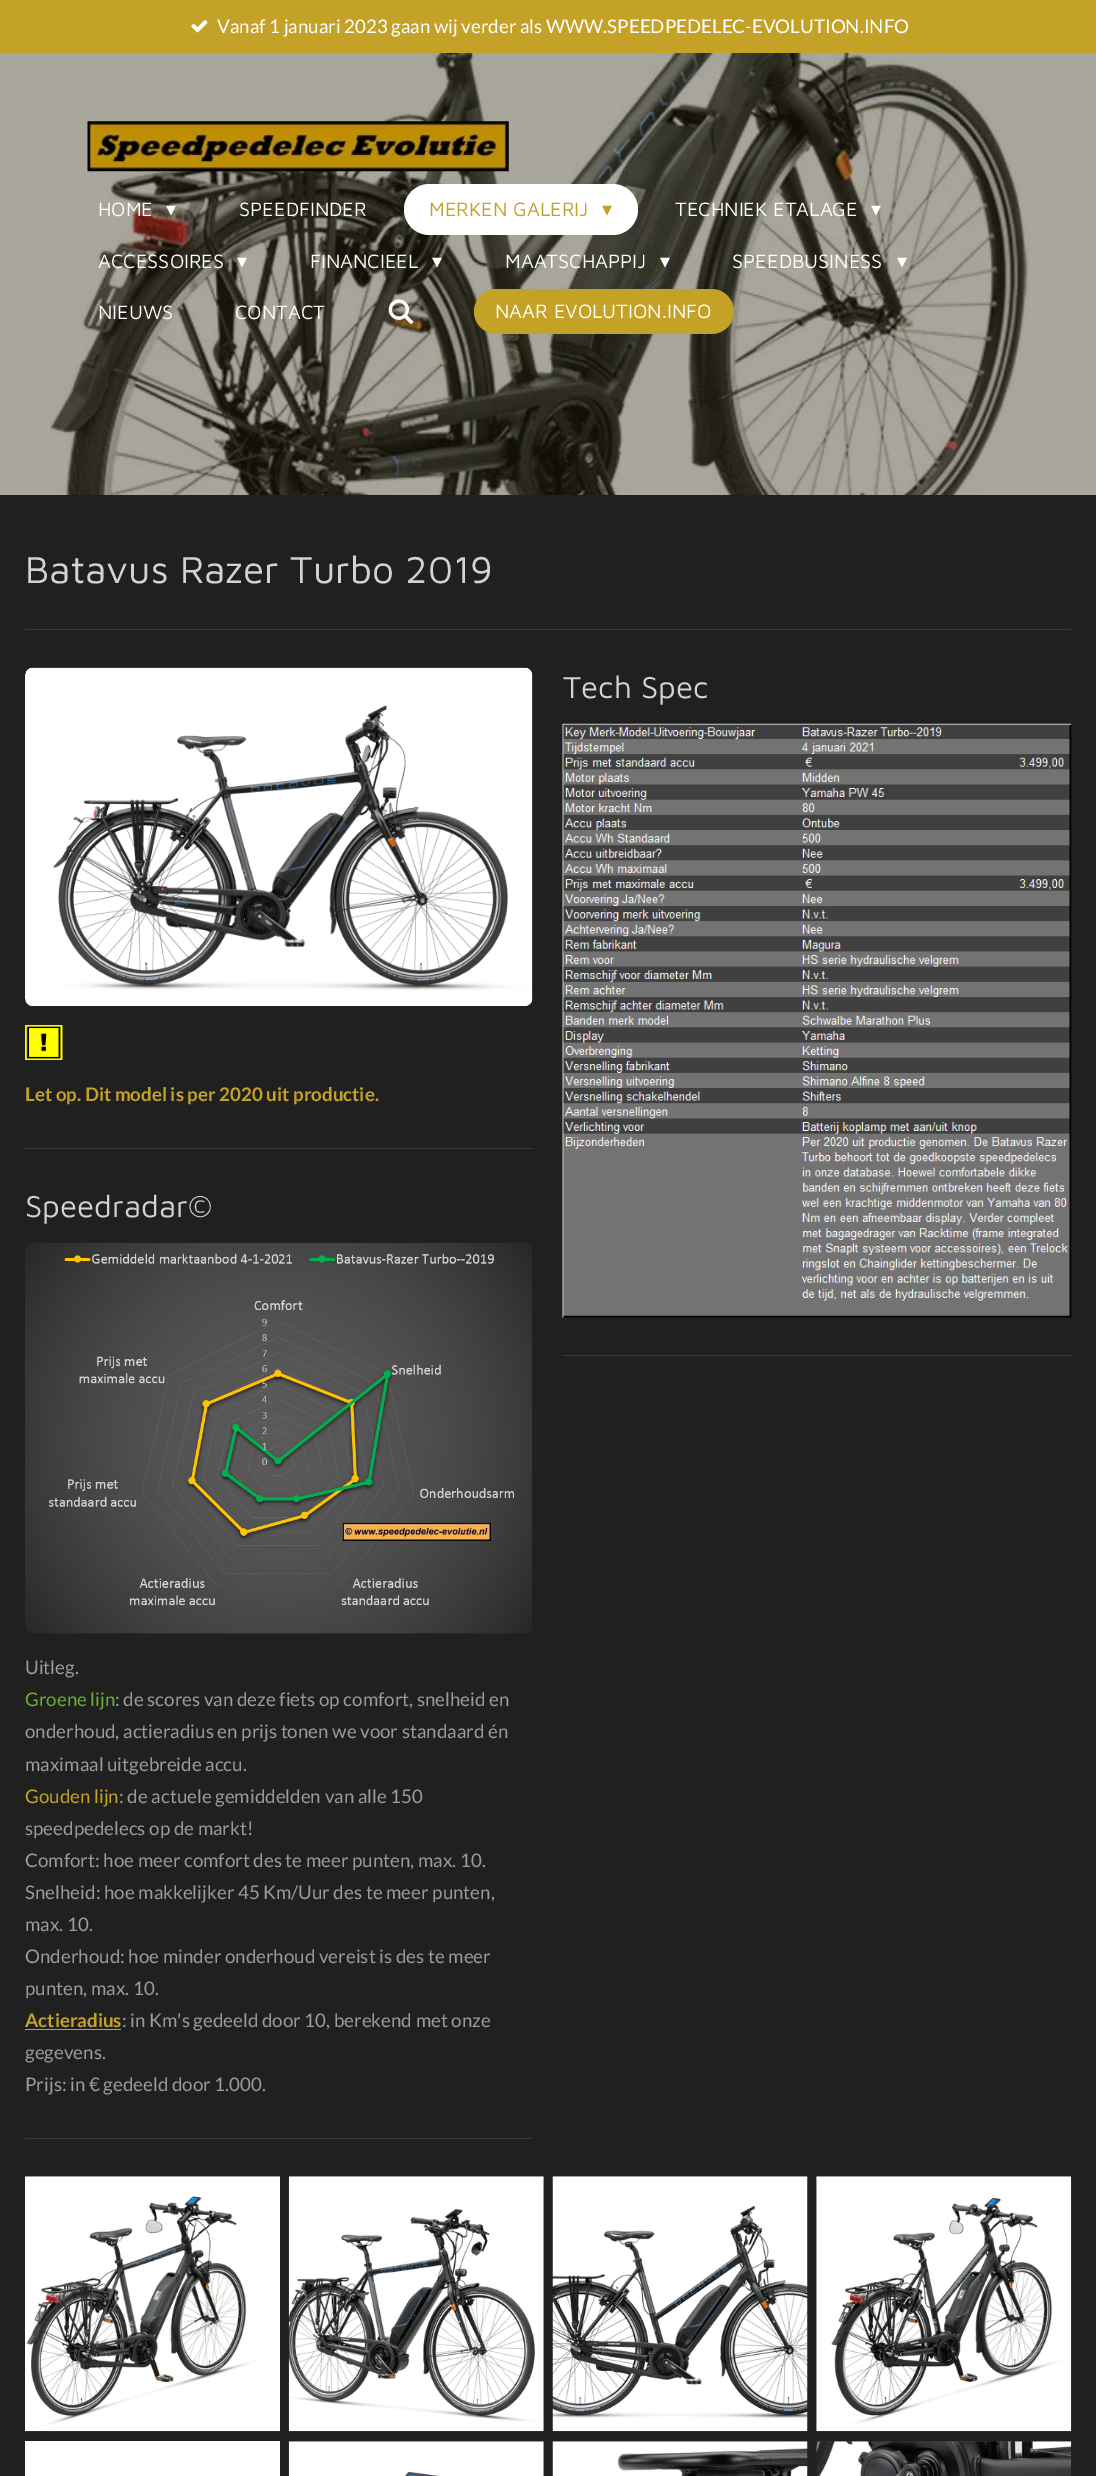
%!PS
<< /PageSize [1096 2476] >> setpagedevice
/rgb { 3 { 255 div 3 1 roll } repeat setrgbcolor } def
/font { [ exch dup neg 0 0 3 -1 roll 0 0 ] selectfont } def
/text { moveto show } def
/roundrect { 5 dict begin { /r /h /w /y /x } { exch def } forall
  x r add y moveto x w add y 2 copy h add r arct x w add y h add x 1 index r arct
  x y h add x y r arct x y 2 copy exch w add exch r arct closepath end } def
/picture { 5 dict begin { /h /w /y /x /name } { exch def } forall
  gsave x y translate w h scale
  w h 8 [w 0 0 h 0 0] name (r) file false 3 colorimage grestore end } def
0 2476 translate 1 -1 scale
4 setmiterlimit
169 166 156 rgb
0 0 1096 2476 rectfill
196 161 39 rgb
0 0 1096 53 rectfill
(img_01.rgb) 191 20 17 13 picture
(img_04.rgb) 49 53 981 442 picture
(img_02.rgb) 87 121 422 51 picture
255 255 255 rgb
404 184 234 51 25.5 roundrect fill
(img_03.rgb) 388 299 26 26 picture
196 161 39 rgb
474 289 260 45 22.5 roundrect fill
32 32 32 rgb
0 495 1096 1981 rectfill
57 57 57 rgb
25 629 1046 1 rectfill
(img_05.rgb) 562 723 510 595 picture
563 1355 508 1 rectfill
(img_06.rgb) 25 667 508 339 picture
(img_07.rgb) 25 1025 38 35 picture
25 1148 508 1 rectfill
(img_08.rgb) 25 1242 507 392 picture
196 161 39 rgb
25 2029 96 1 rectfill
57 57 57 rgb
25 2138 508 1 rectfill
(img_09.rgb) 25 2176 255 256 picture
(img_10.rgb) 288 2176 256 256 picture
(img_11.rgb) 552 2176 256 256 picture
(img_12.rgb) 816 2176 256 256 picture
255 255 255 rgb
25 2441 255 35 rectfill
(img_13.rgb) 288 2441 256 35 picture
(img_14.rgb) 552 2441 256 35 picture
(img_15.rgb) 816 2441 256 35 picture
/Lato-Regular 18.75 font
(Vanaf 1 januari 2023 gaan wij verder als WWW.SPEEDPEDELEC-EVOLUTION.INFO) 217 33 text
/MavenPro-Regular 20 font
(HOME) 98 216 text
/DejaVuSans-Regular 20 font
(▾) 166 216 text
/MavenPro-Regular 20 font
(SPEEDFINDER) 239 216 text
196 161 39 rgb
(MERKEN GALERIJ) 429 216 text
/DejaVuSans-Regular 20 font
(▾) 602 216 text
/MavenPro-Regular 20 font
255 255 255 rgb
(TECHNIEK ETALAGE) 675 216 text
/DejaVuSans-Regular 20 font
(▾) 871 216 text
/MavenPro-Regular 20 font
(ACCESSOIRES) 98 268 text
/DejaVuSans-Regular 20 font
(▾) 237 268 text
/MavenPro-Regular 20 font
(FINANCIEEL) 310 268 text
/DejaVuSans-Regular 20 font
(▾) 432 268 text
/MavenPro-Regular 20 font
(MAATSCHAPPIJ) 505 268 text
/DejaVuSans-Regular 20 font
(▾) 660 268 text
/MavenPro-Regular 20 font
(SPEEDBUSINESS) 732 268 text
/DejaVuSans-Regular 20 font
(▾) 897 268 text
/MavenPro-Regular 20 font
(NIEUWS) 98 319 text
(CONTACT) 235 319 text
(NAAR EVOLUTION.INFO) 495 318 text
/MavenPro-Regular 38.75 font
211 211 211 rgb
(Batavus Razer Turbo 2019) 25 583 text
/MavenPro-Regular 31.25 font
(Tech Spec) 563 698 text
/Lato-Bold 18.75 font
196 161 39 rgb
(Let op. Dit model is per 2020 uit productie.) 25 1101 text
/MavenPro-Regular 31.25 font
211 211 211 rgb
(Speedradar©) 25 1217 text
/Lato-Regular 18.75 font
155 155 155 rgb
(Uitleg.) 25 1674 text
104 174 52 rgb
(Groene lijn) 25 1706 text
155 155 155 rgb
(: de scores van deze fiets op comfort, snelheid en) 115 1706 text
(onderhoud, actieradius en prijs tonen we voor standaard én) 25 1738 text
(maximaal uitgebreide accu.) 25 1771 text
196 161 39 rgb
(Gouden lijn) 25 1803 text
155 155 155 rgb
(: de actuele gemiddelden van alle 150) 119 1803 text
(speedpedelecs op de markt!) 25 1835 text
(Comfort: hoe meer comfort des te meer punten, max. 10.) 25 1867 text
(Snelheid: hoe makkelijker 45 Km/Uur des te meer punten,) 25 1899 text
(max. 10.) 25 1931 text
(Onderhoud: hoe minder onderhoud vereist is des te meer) 25 1963 text
(punten, max. 10.) 25 1995 text
/Lato-Bold 18.75 font
196 161 39 rgb
(Actieradius) 25 2027 text
/Lato-Regular 18.75 font
155 155 155 rgb
(: in Km's gedeeld door 10, berekend met onze) 122 2027 text
(gegevens.) 25 2059 text
(Prijs: in € gedeeld door 1.000.) 25 2091 text
showpage
